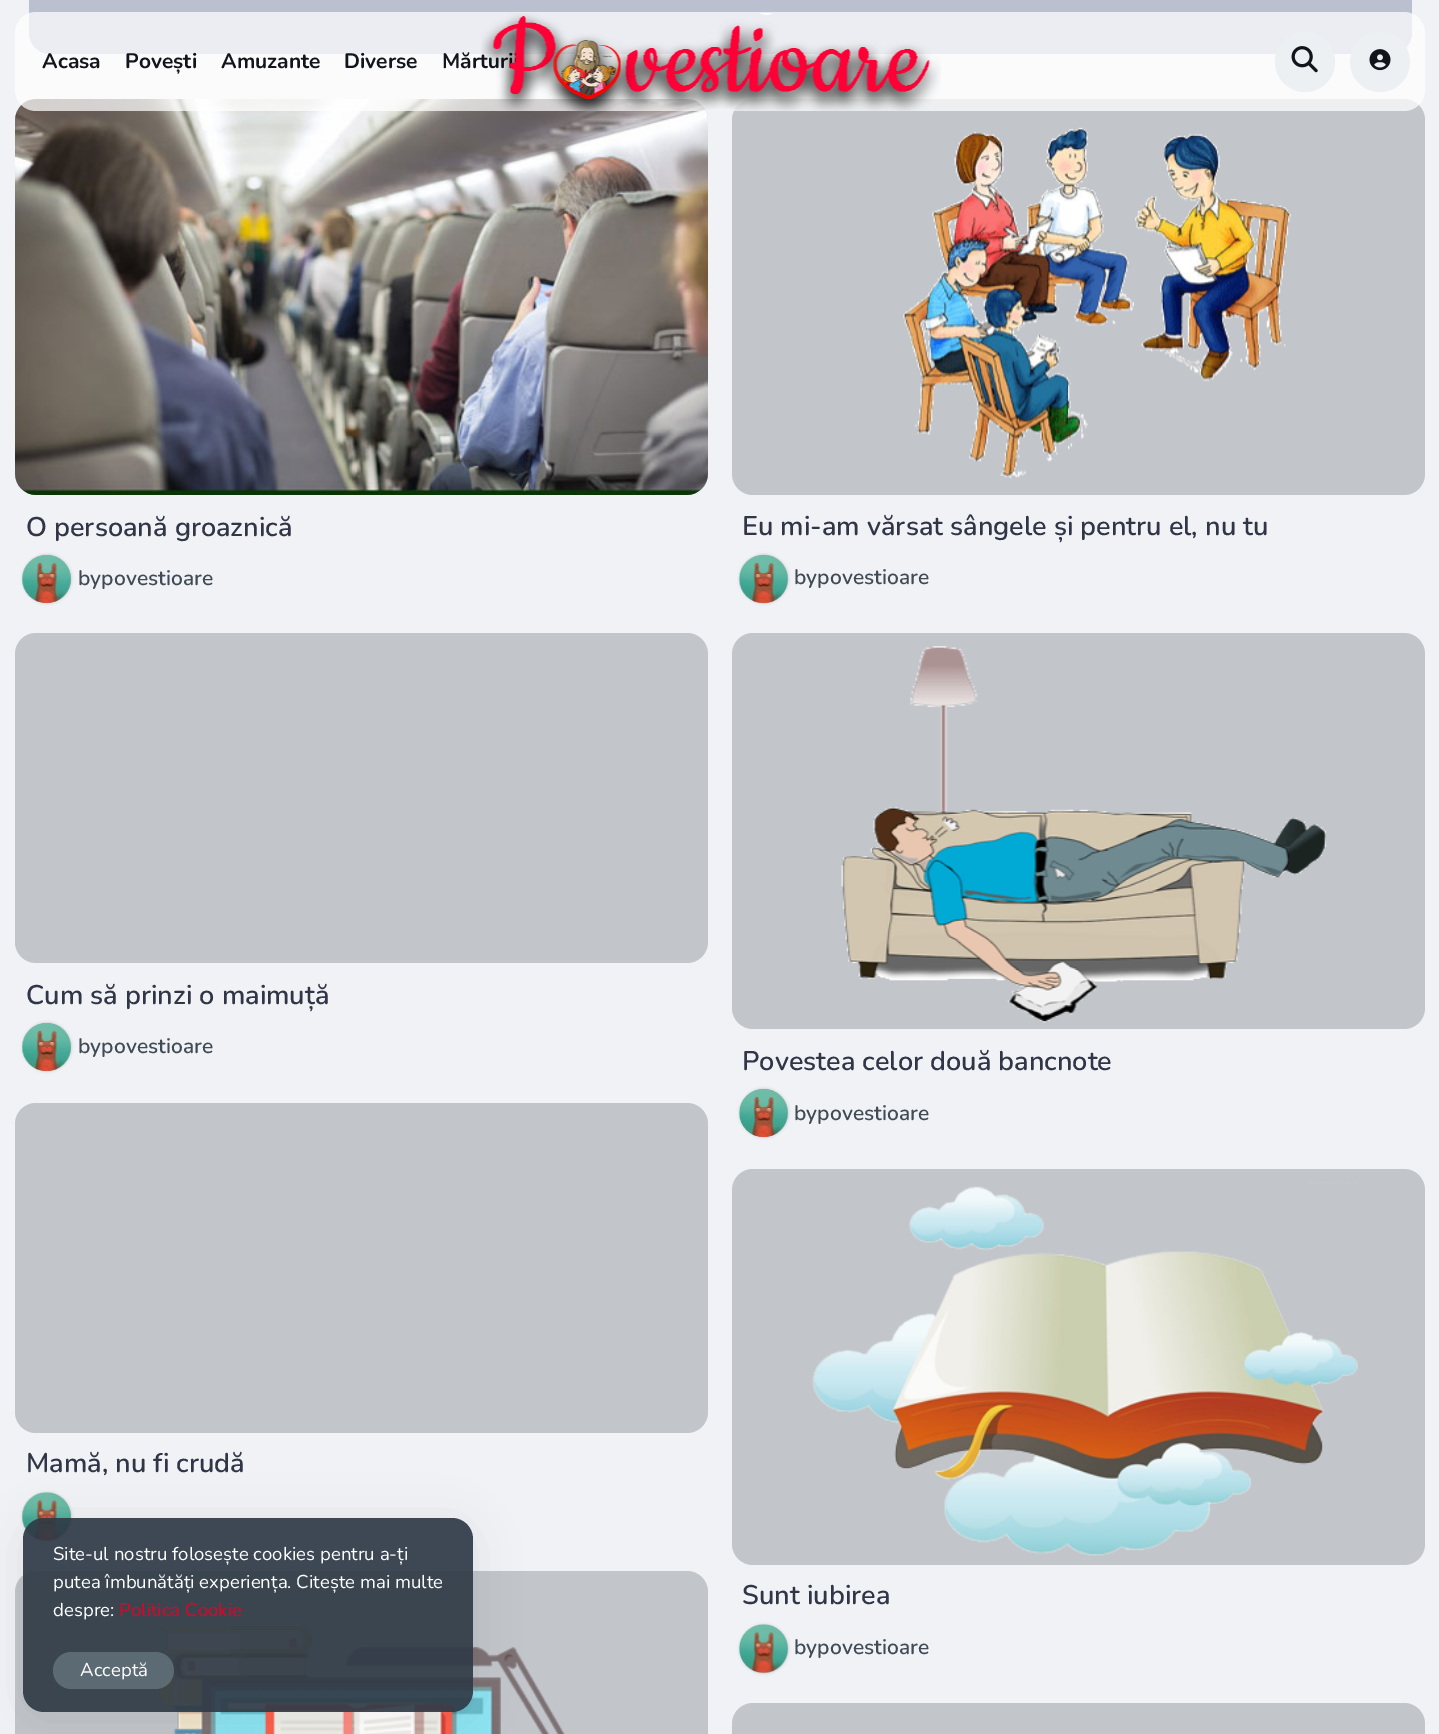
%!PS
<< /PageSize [1439 1734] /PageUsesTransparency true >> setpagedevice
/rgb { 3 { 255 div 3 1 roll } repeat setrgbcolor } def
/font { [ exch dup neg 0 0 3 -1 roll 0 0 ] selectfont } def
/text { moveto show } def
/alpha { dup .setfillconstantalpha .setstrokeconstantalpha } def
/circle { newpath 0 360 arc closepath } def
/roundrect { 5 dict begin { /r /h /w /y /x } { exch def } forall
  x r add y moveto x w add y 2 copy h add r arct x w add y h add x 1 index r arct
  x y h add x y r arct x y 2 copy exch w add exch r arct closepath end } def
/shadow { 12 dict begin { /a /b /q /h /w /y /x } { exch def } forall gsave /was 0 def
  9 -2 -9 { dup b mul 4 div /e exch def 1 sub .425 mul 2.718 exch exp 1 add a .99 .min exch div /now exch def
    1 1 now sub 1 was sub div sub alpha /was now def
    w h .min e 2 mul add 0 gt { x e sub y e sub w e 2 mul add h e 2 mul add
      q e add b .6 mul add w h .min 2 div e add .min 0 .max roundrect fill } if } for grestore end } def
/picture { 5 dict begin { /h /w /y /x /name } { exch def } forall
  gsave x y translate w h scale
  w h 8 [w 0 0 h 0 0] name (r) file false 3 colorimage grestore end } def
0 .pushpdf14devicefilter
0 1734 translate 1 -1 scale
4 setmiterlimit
240 242 246 rgb
0 0 1439 1734 rectfill
187 192 209 rgb
29 -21 1383 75 21 roundrect fill
194 198 203 rgb
15 99 693 396 21 roundrect fill
(img_04.rgb) 15 99 693 396 picture
732 99 693 396 21 roundrect fill
0.72 alpha
255 255 255 rgb
15 12 1410 99 21 roundrect fill
1 alpha
237 240 243 rgb
1305 62 30 circle fill
(img_02.rgb) 1291 46 27 27 picture
1380 62 30 circle fill
(img_03.rgb) 1369 49 22 22 picture
0 0 0 rgb
23 555 48 48 24 1.5 0.2 shadow
168 182 192 rgb
47 579 24 circle fill
(img_05.rgb) 22 555 49 48 picture
(img_06.rgb) 22 555 49 48 picture
(img_07.rgb) 903 127 388 352 picture
0 0 0 rgb
740 555 48 48 24 1.5 0.2 shadow
168 182 192 rgb
764 579 24 circle fill
(img_08.rgb) 739 554 49 50 picture
(img_09.rgb) 739 555 49 48 picture
194 198 203 rgb
15 633 693 330 21 roundrect fill
0 0 0 rgb
23 1023 48 48 24 1.5 0.2 shadow
168 182 192 rgb
47 1047 24 circle fill
(img_05.rgb) 22 1023 49 48 picture
(img_06.rgb) 22 1023 49 48 picture
194 198 203 rgb
732 633 693 396 21 roundrect fill
(img_10.rgb) 841 646 486 377 picture
0 0 0 rgb
740 1089 48 48 24 1.5 0.2 shadow
168 182 192 rgb
764 1113 24 circle fill
(img_11.rgb) 739 1089 49 48 picture
(img_12.rgb) 739 1089 49 48 picture
194 198 203 rgb
15 1103 693 330 21 roundrect fill
0 0 0 rgb
23 1493 48 48 24 1.5 0.2 shadow
168 182 192 rgb
47 1517 24 circle fill
(img_13.rgb) 22 1492 49 49 picture
(img_14.rgb) 22 1492 49 49 picture
194 198 203 rgb
15 1571 693 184 21 roundrect fill
(img_15.rgb) 158 1624 407 110 picture
732 1169 693 396 21 roundrect fill
(img_16.rgb) 812 1182 546 374 picture
0 0 0 rgb
740 1625 48 48 24 1.5 0.2 shadow
168 182 192 rgb
764 1649 24 circle fill
(img_17.rgb) 739 1624 49 49 picture
(img_18.rgb) 739 1624 49 49 picture
194 198 203 rgb
732 1703 693 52 21 roundrect fill
gsave
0 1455 moveto 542 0 rlineto 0 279 rlineto -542 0 rlineto closepath 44 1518 moveto 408 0 rlineto 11.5 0 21 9.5 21 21 rcurveto 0 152 rlineto 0 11.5 -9.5 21 -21 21 rcurveto -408 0 rlineto -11.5 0 -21 -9.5 -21 -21 rcurveto 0 -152 rlineto 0 -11.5 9.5 -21 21 -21 rcurveto closepath eoclip newpath
0 0 0 rgb
23 1524 450 194 21 22.5 0.07 shadow
grestore
0.92 alpha
47 58 70 rgb
23 1518 450 194 21 roundrect fill
0.2 alpha
225 255 255 rgb
53 1652 121 37 18.5 roundrect fill
/Nunito-Bold 21 font
1 alpha
19 21 29 rgb
(Acasa) 42 68 text
(Povești) 125 68 text
(Amuzante) 221 68 text
(Diverse) 344 68 text
(Mărturi) 442 68 text
(img_01.rgb) 481 13 460 98 picture
/Nunito-SemiBold 27 font
49 54 71 rgb
(O persoană groaznică) 26 536 text
/Nunito-SemiBold 21 font
64 75 85 rgb
(bypovestioare) 78 585 text
/Nunito-SemiBold 27 font
49 54 71 rgb
(Eu mi-am vărsat sângele și pentru el, nu tu) 742 535 text
/Nunito-SemiBold 21 font
64 75 85 rgb
(bypovestioare) 794 584 text
/Nunito-SemiBold 27 font
49 54 71 rgb
(Cum să prinzi o maimuță) 26 1004 text
/Nunito-SemiBold 21 font
64 75 85 rgb
(bypovestioare) 78 1053 text
/Nunito-SemiBold 27 font
49 54 71 rgb
(Povestea celor două bancnote) 742 1070 text
/Nunito-SemiBold 21 font
64 75 85 rgb
(bypovestioare) 794 1120 text
/Nunito-SemiBold 27 font
49 54 71 rgb
(Mamă, nu fi crudă) 26 1472 text
(Sunt iubirea) 742 1604 text
/Nunito-SemiBold 21 font
64 75 85 rgb
(bypovestioare) 794 1654 text
/Nunito-Regular 18.6 font
255 255 255 rgb
(Site-ul nostru folosește cookies pentru a-ți) 53 1560 text
(putea îmbunătăți experiența. Citește mai multe) 53 1588 text
(despre:) 53 1616 text
230 0 35 rgb
(Politica Cookie) 119 1616 text
255 255 255 rgb
(Acceptă) 80 1676 text
.poppdf14devicefilter showpage
